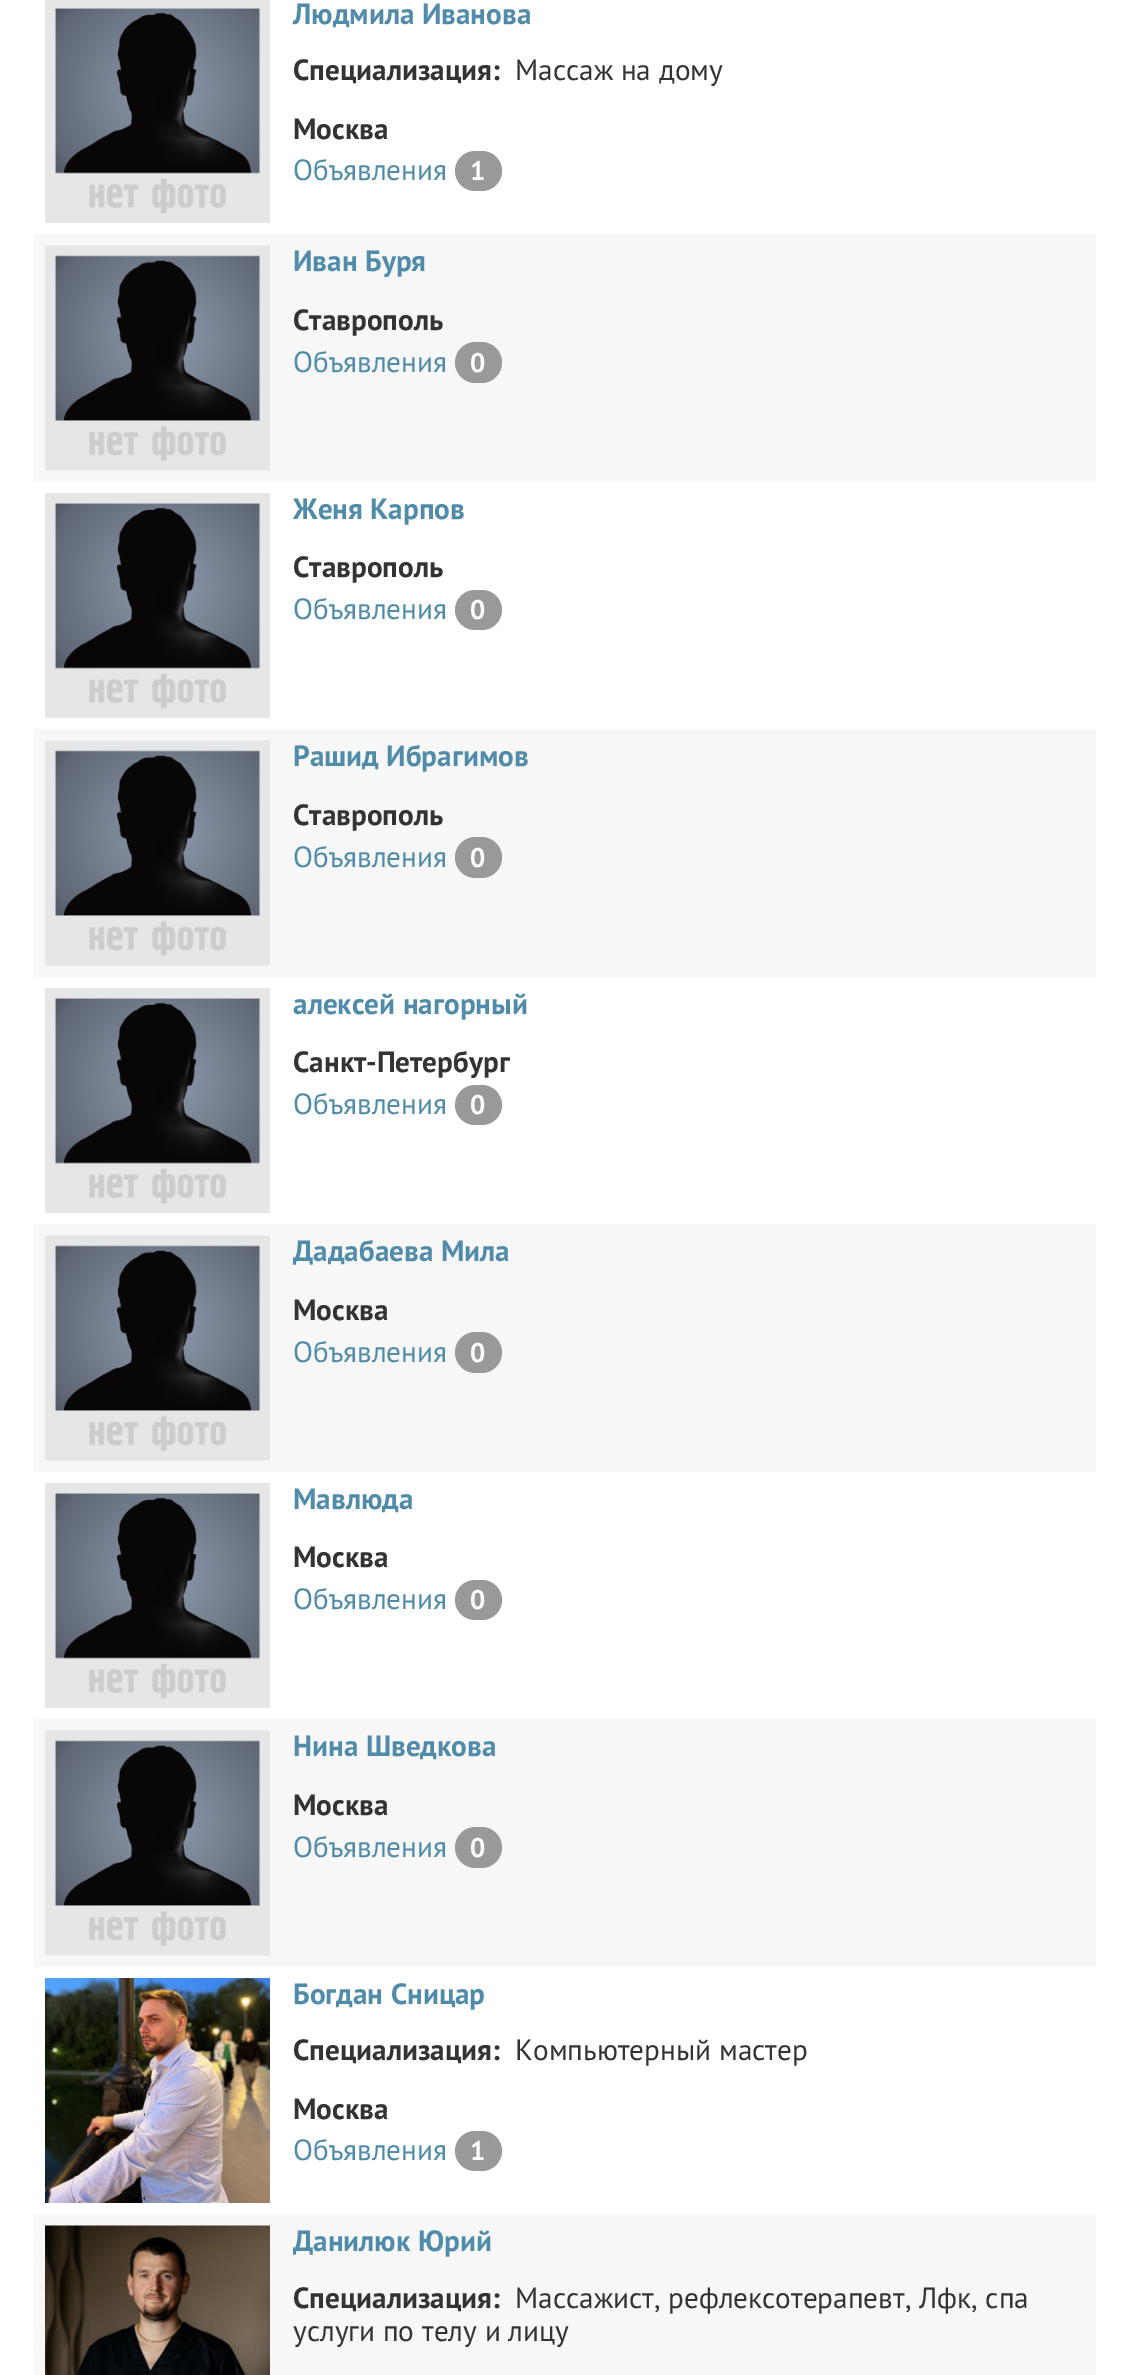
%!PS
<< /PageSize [1128 2375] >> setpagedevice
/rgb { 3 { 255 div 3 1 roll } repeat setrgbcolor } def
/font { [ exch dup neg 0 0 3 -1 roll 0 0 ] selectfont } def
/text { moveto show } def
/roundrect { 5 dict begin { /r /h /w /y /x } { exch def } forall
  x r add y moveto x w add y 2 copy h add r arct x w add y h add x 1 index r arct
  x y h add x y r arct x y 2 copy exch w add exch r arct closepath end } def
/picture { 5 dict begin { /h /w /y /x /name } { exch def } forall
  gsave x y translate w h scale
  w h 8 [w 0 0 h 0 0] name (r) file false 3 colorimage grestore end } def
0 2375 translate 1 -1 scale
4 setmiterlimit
255 255 255 rgb
0 0 1128 2375 rectfill
(img_01.rgb) 45 0 225 223 picture
153 153 153 rgb
455 151 47 40 20 roundrect fill
247 247 247 rgb
34 234 1062 248 rectfill
(img_02.rgb) 45 245 225 226 picture
153 153 153 rgb
455 342 47 41 20.5 roundrect fill
(img_03.rgb) 45 493 225 225 picture
455 590 47 40 20 roundrect fill
247 247 247 rgb
34 729 1062 248 rectfill
(img_04.rgb) 45 740 225 226 picture
153 153 153 rgb
455 837 47 41 20.5 roundrect fill
(img_05.rgb) 45 988 225 225 picture
455 1085 47 40 20 roundrect fill
247 247 247 rgb
34 1224 1062 248 rectfill
(img_06.rgb) 45 1235 225 226 picture
153 153 153 rgb
455 1332 47 41 20.5 roundrect fill
(img_07.rgb) 45 1483 225 225 picture
455 1580 47 40 20 roundrect fill
247 247 247 rgb
34 1719 1062 248 rectfill
(img_08.rgb) 45 1730 225 226 picture
153 153 153 rgb
455 1827 47 41 20.5 roundrect fill
(img_09.rgb) 45 1978 225 225 picture
455 2131 47 40 20 roundrect fill
247 247 247 rgb
34 2214 1062 161 rectfill
(img_10.rgb) 45 2225 225 150 picture
/PTSans-Bold 29.25 font
80 140 170 rgb
(Людмила Иванова) 293 24 text
51 51 51 rgb
(Специализация:) 293 80 text
/PTSans-Regular 29.25 font
(Массаж на дому) 515 80 text
/PTSans-Bold 29.25 font
(Москва) 293 139 text
/PTSans-Regular 29.25 font
80 140 170 rgb
(Объявления) 293 180 text
/PTSans-Bold 27 font
255 255 255 rgb
(1) 470 180 text
/PTSans-Bold 29.25 font
80 140 170 rgb
(Иван Буря) 293 271 text
51 51 51 rgb
(Ставрополь) 293 330 text
/PTSans-Regular 29.25 font
80 140 170 rgb
(Объявления) 293 372 text
/PTSans-Bold 27 font
255 255 255 rgb
(0) 470 372 text
/PTSans-Bold 29.25 font
80 140 170 rgb
(Женя Карпов) 293 519 text
51 51 51 rgb
(Ставрополь) 293 577 text
/PTSans-Regular 29.25 font
80 140 170 rgb
(Объявления) 293 619 text
/PTSans-Bold 27 font
255 255 255 rgb
(0) 470 619 text
/PTSans-Bold 29.25 font
80 140 170 rgb
(Рашид Ибрагимов) 293 766 text
51 51 51 rgb
(Ставрополь) 293 825 text
/PTSans-Regular 29.25 font
80 140 170 rgb
(Объявления) 293 867 text
/PTSans-Bold 27 font
255 255 255 rgb
(0) 470 867 text
/PTSans-Bold 29.25 font
80 140 170 rgb
(алексей нагорный) 293 1014 text
51 51 51 rgb
(Санкт-Петербург) 293 1072 text
/PTSans-Regular 29.25 font
80 140 170 rgb
(Объявления) 293 1114 text
/PTSans-Bold 27 font
255 255 255 rgb
(0) 470 1114 text
/PTSans-Bold 29.25 font
80 140 170 rgb
(Дадабаева Мила) 293 1261 text
51 51 51 rgb
(Москва) 293 1320 text
/PTSans-Regular 29.25 font
80 140 170 rgb
(Объявления) 293 1362 text
/PTSans-Bold 27 font
255 255 255 rgb
(0) 470 1362 text
/PTSans-Bold 29.25 font
80 140 170 rgb
(Мавлюда) 293 1509 text
51 51 51 rgb
(Москва) 293 1567 text
/PTSans-Regular 29.25 font
80 140 170 rgb
(Объявления) 293 1609 text
/PTSans-Bold 27 font
255 255 255 rgb
(0) 470 1609 text
/PTSans-Bold 29.25 font
80 140 170 rgb
(Нина Шведкова) 293 1756 text
51 51 51 rgb
(Москва) 293 1815 text
/PTSans-Regular 29.25 font
80 140 170 rgb
(Объявления) 293 1857 text
/PTSans-Bold 27 font
255 255 255 rgb
(0) 470 1857 text
/PTSans-Bold 29.25 font
80 140 170 rgb
(Богдан Сницар) 293 2004 text
51 51 51 rgb
(Специализация:) 293 2060 text
/PTSans-Regular 29.25 font
(Компьютерный мастер) 515 2060 text
/PTSans-Bold 29.25 font
(Москва) 293 2119 text
/PTSans-Regular 29.25 font
80 140 170 rgb
(Объявления) 293 2160 text
/PTSans-Bold 27 font
255 255 255 rgb
(1) 470 2160 text
/PTSans-Bold 29.25 font
80 140 170 rgb
(Данилюк Юрий) 293 2251 text
51 51 51 rgb
(Специализация:) 293 2308 text
/PTSans-Regular 29.25 font
(Массажист, рефлексотерапевт, Лфк, спа) 515 2308 text
(услуги по телу и лицу) 293 2341 text
showpage
